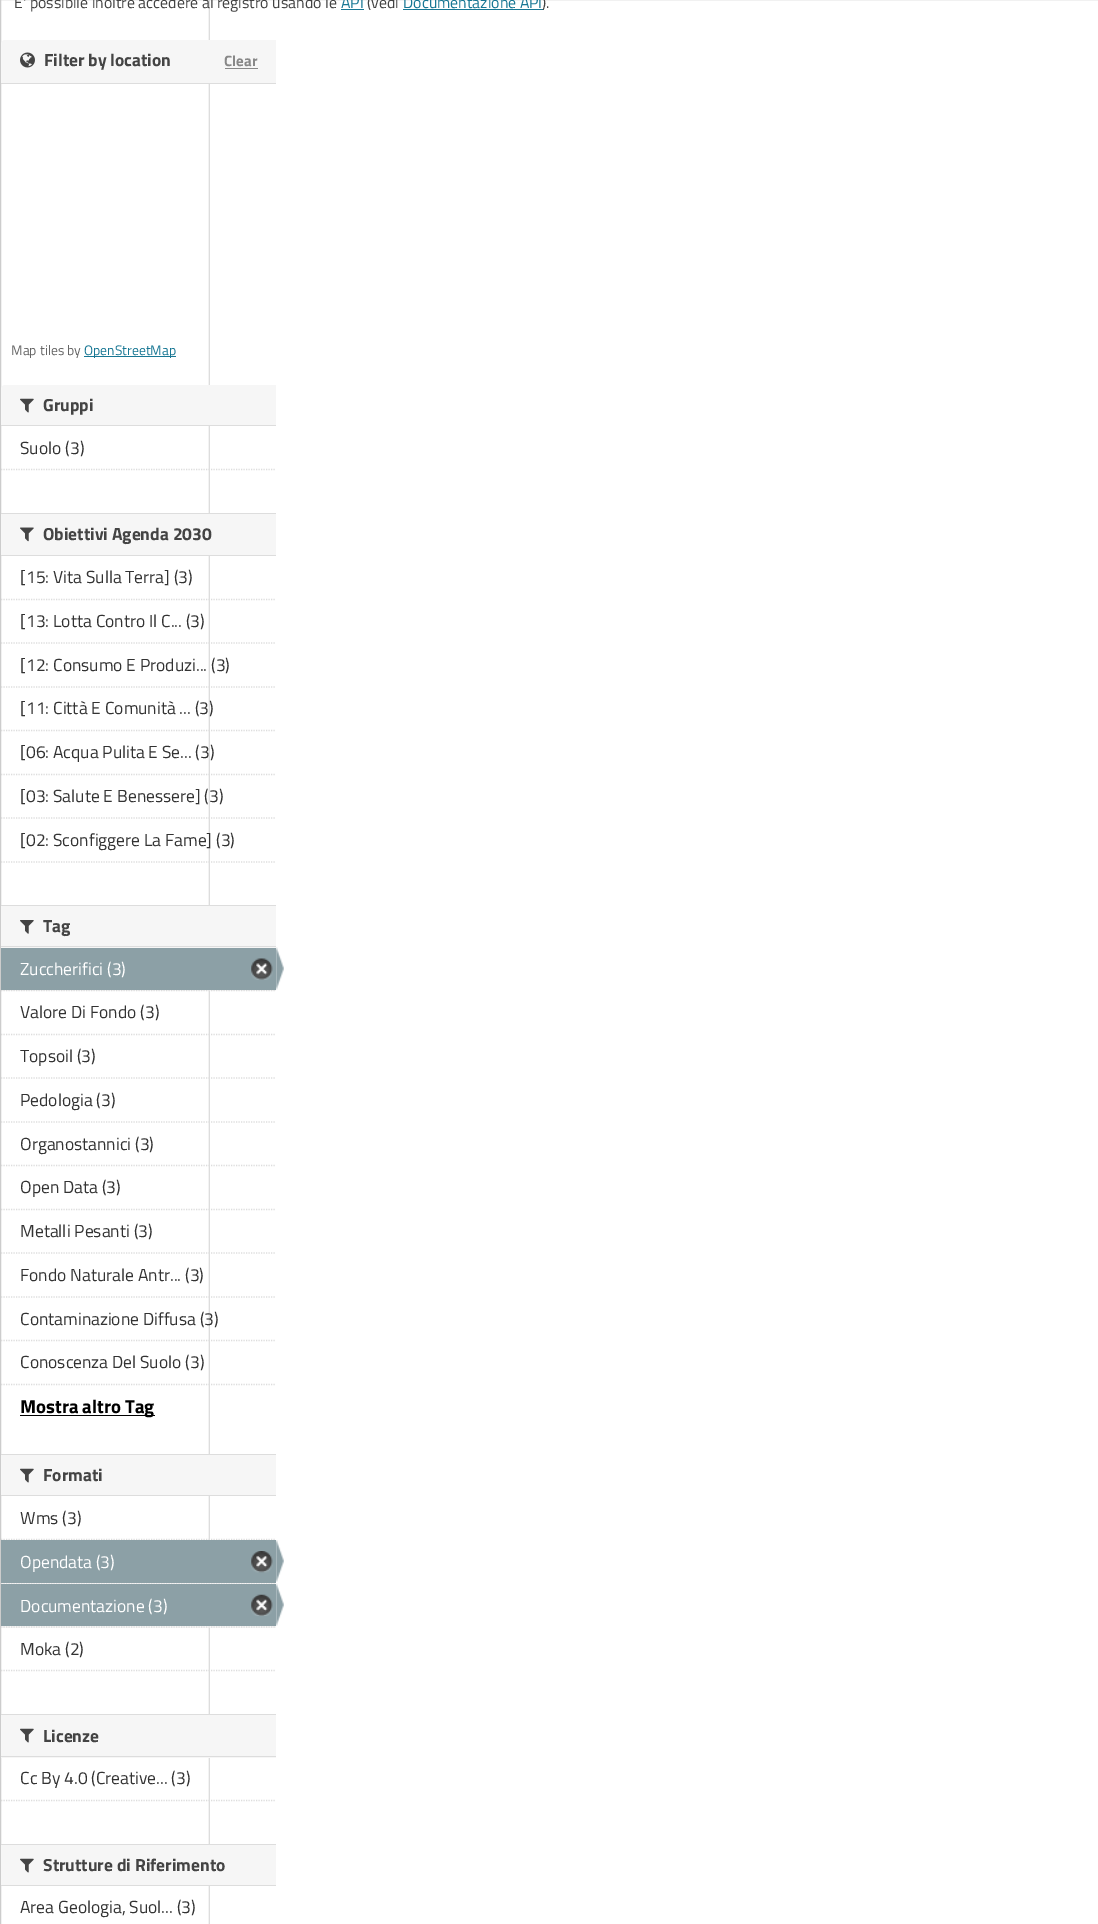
%!PS
<< /PageSize [1098 1924] >> setpagedevice
/rgb { 3 { 255 div 3 1 roll } repeat setrgbcolor } def
/font { [ exch dup neg 0 0 3 -1 roll 0 0 ] selectfont } def
/text { moveto show } def
/picture { 5 dict begin { /h /w /y /x /name } { exch def } forall
  gsave x y translate w h scale
  w h 8 [w 0 0 h 0 0] name (r) file false 3 colorimage grestore end } def
0 1924 translate 1 -1 scale
4 setmiterlimit
255 255 255 rgb
0 0 1098 1924 rectfill
(img_01.rgb) 208 0 2 1924 picture
204 204 204 rgb
0.5 -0.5 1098 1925 rectstroke
24 119 148 rgb
341 9 23 1 rectfill
403 9 140 1 rectfill
246 246 246 rgb
5 40 moveto 271 0 rlineto 0 44 rlineto -275 0 rlineto 0 -40 rlineto 0 -2 2 -4 4 -4 rcurveto closepath fill
221 221 221 rgb
1 83 275 1 rectfill
(img_02.rgb) 20 52 15 16 picture
136 136 136 rgb
225 68 33 1 rectfill
24 119 148 rgb
84 356 92 1 rectfill
246 246 246 rgb
5 385 moveto 271 0 rlineto 0 41 rlineto -275 0 rlineto 0 -37 rlineto 0 -2 2 -4 4 -4 rcurveto closepath fill
221 221 221 rgb
1 425 275 1 rectfill
(img_03.rgb) 20 398 14 15 picture
1.2 setlinewidth
[1.25 1.25] 0 setdash
1 469.5 moveto 275 0 rlineto stroke
246 246 246 rgb
1 514 275 41 rectfill
221 221 221 rgb
1 513 275 1 rectfill
1 555 275 1 rectfill
(img_04.rgb) 20 527 14 15 picture
1 599.5 moveto 275 0 rlineto stroke
1 643 moveto 275 0 rlineto stroke
1 687 moveto 275 0 rlineto stroke
1 730.5 moveto 275 0 rlineto stroke
1 774.5 moveto 275 0 rlineto stroke
1 818 moveto 275 0 rlineto stroke
1 862 moveto 275 0 rlineto stroke
246 246 246 rgb
1 906 275 42 rectfill
221 221 221 rgb
1 905 275 1 rectfill
1 946 275 1 rectfill
(img_05.rgb) 20 920 14 14 picture
246 246 246 rgb
2 990 274 1 rectfill
221 221 221 rgb
1 990.5 moveto 275 0 rlineto stroke
140 160 166 rgb
1 948 275 42 rectfill
(img_06.rgb) 251 958 22 22 picture
(img_07.rgb) 276 947 8 43 picture
221 221 221 rgb
1 1034.5 moveto 275 0 rlineto stroke
1 1078 moveto 275 0 rlineto stroke
1 1122 moveto 275 0 rlineto stroke
1 1165.5 moveto 275 0 rlineto stroke
1 1209.5 moveto 275 0 rlineto stroke
1 1253 moveto 275 0 rlineto stroke
1 1297 moveto 275 0 rlineto stroke
1 1340.5 moveto 275 0 rlineto stroke
1 1384.5 moveto 275 0 rlineto stroke
0 0 0 rgb
20 1415 135 1 rectfill
246 246 246 rgb
1 1455 275 40 rectfill
221 221 221 rgb
1 1454 275 1 rectfill
1 1495 275 1 rectfill
(img_03.rgb) 20 1468 14 15 picture
1 1539.5 moveto 275 0 rlineto stroke
246 246 246 rgb
1 1583 275 1 rectfill
221 221 221 rgb
1 1583 moveto 275 0 rlineto stroke
140 160 166 rgb
1 1540 275 43 rectfill
(img_08.rgb) 251 1551 22 22 picture
(img_09.rgb) 276 1540 8 42 picture
246 246 246 rgb
1 1626 275 2 rectfill
221 221 221 rgb
1 1627 moveto 275 0 rlineto stroke
140 160 166 rgb
1 1584 275 42 rectfill
(img_10.rgb) 251 1594 22 22 picture
(img_11.rgb) 276 1583 8 43 picture
221 221 221 rgb
1 1670.5 moveto 275 0 rlineto stroke
246 246 246 rgb
1 1715 275 43 rectfill
221 221 221 rgb
1 1714 275 1 rectfill
1 1756 275 1 rectfill
(img_03.rgb) 20 1728 14 15 picture
1 1800.5 moveto 275 0 rlineto stroke
246 246 246 rgb
1 1845 275 40 rectfill
221 221 221 rgb
1 1844 275 1 rectfill
1 1885 275 1 rectfill
(img_03.rgb) 20 1858 14 15 picture
/TitilliumWeb-Regular 15.9 font
68 68 68 rgb
(E' possibile inoltre accedere al registro usando le) 14 8 text
24 119 148 rgb
(API) 341 8 text
68 68 68 rgb
(\(vedi) 367 8 text
24 119 148 rgb
(Documentazione API) 403 8 text
68 68 68 rgb
(\).) 542 8 text
/TitilliumWeb-Bold 17.5 font
(Filter by location) 44 66 text
/TitilliumWeb-Bold 15 font
136 136 136 rgb
(Clear) 224 66 text
/TitilliumWeb-Regular 13.75 font
102 102 102 rgb
(Map tiles by) 11 355 text
24 119 148 rgb
(OpenStreetMap) 84 355 text
/TitilliumWeb-Bold 17.5 font
68 68 68 rgb
(Gruppi) 43 411 text
/TitilliumWeb-Regular 17.5 font
51 51 51 rgb
(Suolo \(3\)) 20 454 text
/TitilliumWeb-Bold 17.5 font
68 68 68 rgb
(Obiettivi Agenda 2030) 43 540 text
/TitilliumWeb-Regular 17.5 font
51 51 51 rgb
([15: Vita Sulla Terra] \(3\)) 20 583 text
([13: Lotta Contro Il C... \(3\)) 20 627 text
([12: Consumo E Produzi... \(3\)) 20 671 text
([11: Città E Comunità ... \(3\)) 20 714 text
([06: Acqua Pulita E Se... \(3\)) 20 758 text
([03: Salute E Benessere] \(3\)) 20 802 text
([02: Sconfiggere La Fame] \(3\)) 20 846 text
/TitilliumWeb-Bold 17.5 font
68 68 68 rgb
(Tag) 43 932 text
/TitilliumWeb-Regular 17.5 font
255 255 255 rgb
(Zuccherifici \(3\)) 20 975 text
51 51 51 rgb
(Valore Di Fondo \(3\)) 20 1018 text
(Topsoil \(3\)) 20 1062 text
(Pedologia \(3\)) 20 1106 text
(Organostannici \(3\)) 20 1150 text
(Open Data \(3\)) 20 1193 text
(Metalli Pesanti \(3\)) 20 1237 text
(Fondo Naturale Antr... \(3\)) 20 1281 text
(Contaminazione Diffusa \(3\)) 20 1325 text
(Conoscenza Del Suolo \(3\)) 20 1368 text
/TitilliumWeb-Bold 18.75 font
0 0 0 rgb
(Mostra altro Tag) 20 1413 text
/TitilliumWeb-Bold 17.5 font
68 68 68 rgb
(Formati) 43 1481 text
/TitilliumWeb-Regular 17.5 font
51 51 51 rgb
(Wms \(3\)) 20 1524 text
255 255 255 rgb
(Opendata \(3\)) 20 1568 text
(Documentazione \(3\)) 20 1612 text
51 51 51 rgb
(Moka \(2\)) 20 1655 text
/TitilliumWeb-Bold 17.5 font
68 68 68 rgb
(Licenze) 43 1742 text
/TitilliumWeb-Regular 17.5 font
51 51 51 rgb
(Cc By 4.0 \(Creative... \(3\)) 20 1784 text
/TitilliumWeb-Bold 17.5 font
68 68 68 rgb
(Strutture di Riferimento) 43 1871 text
/TitilliumWeb-Regular 17.5 font
51 51 51 rgb
(Area Geologia, Suol... \(3\)) 20 1913 text
showpage
